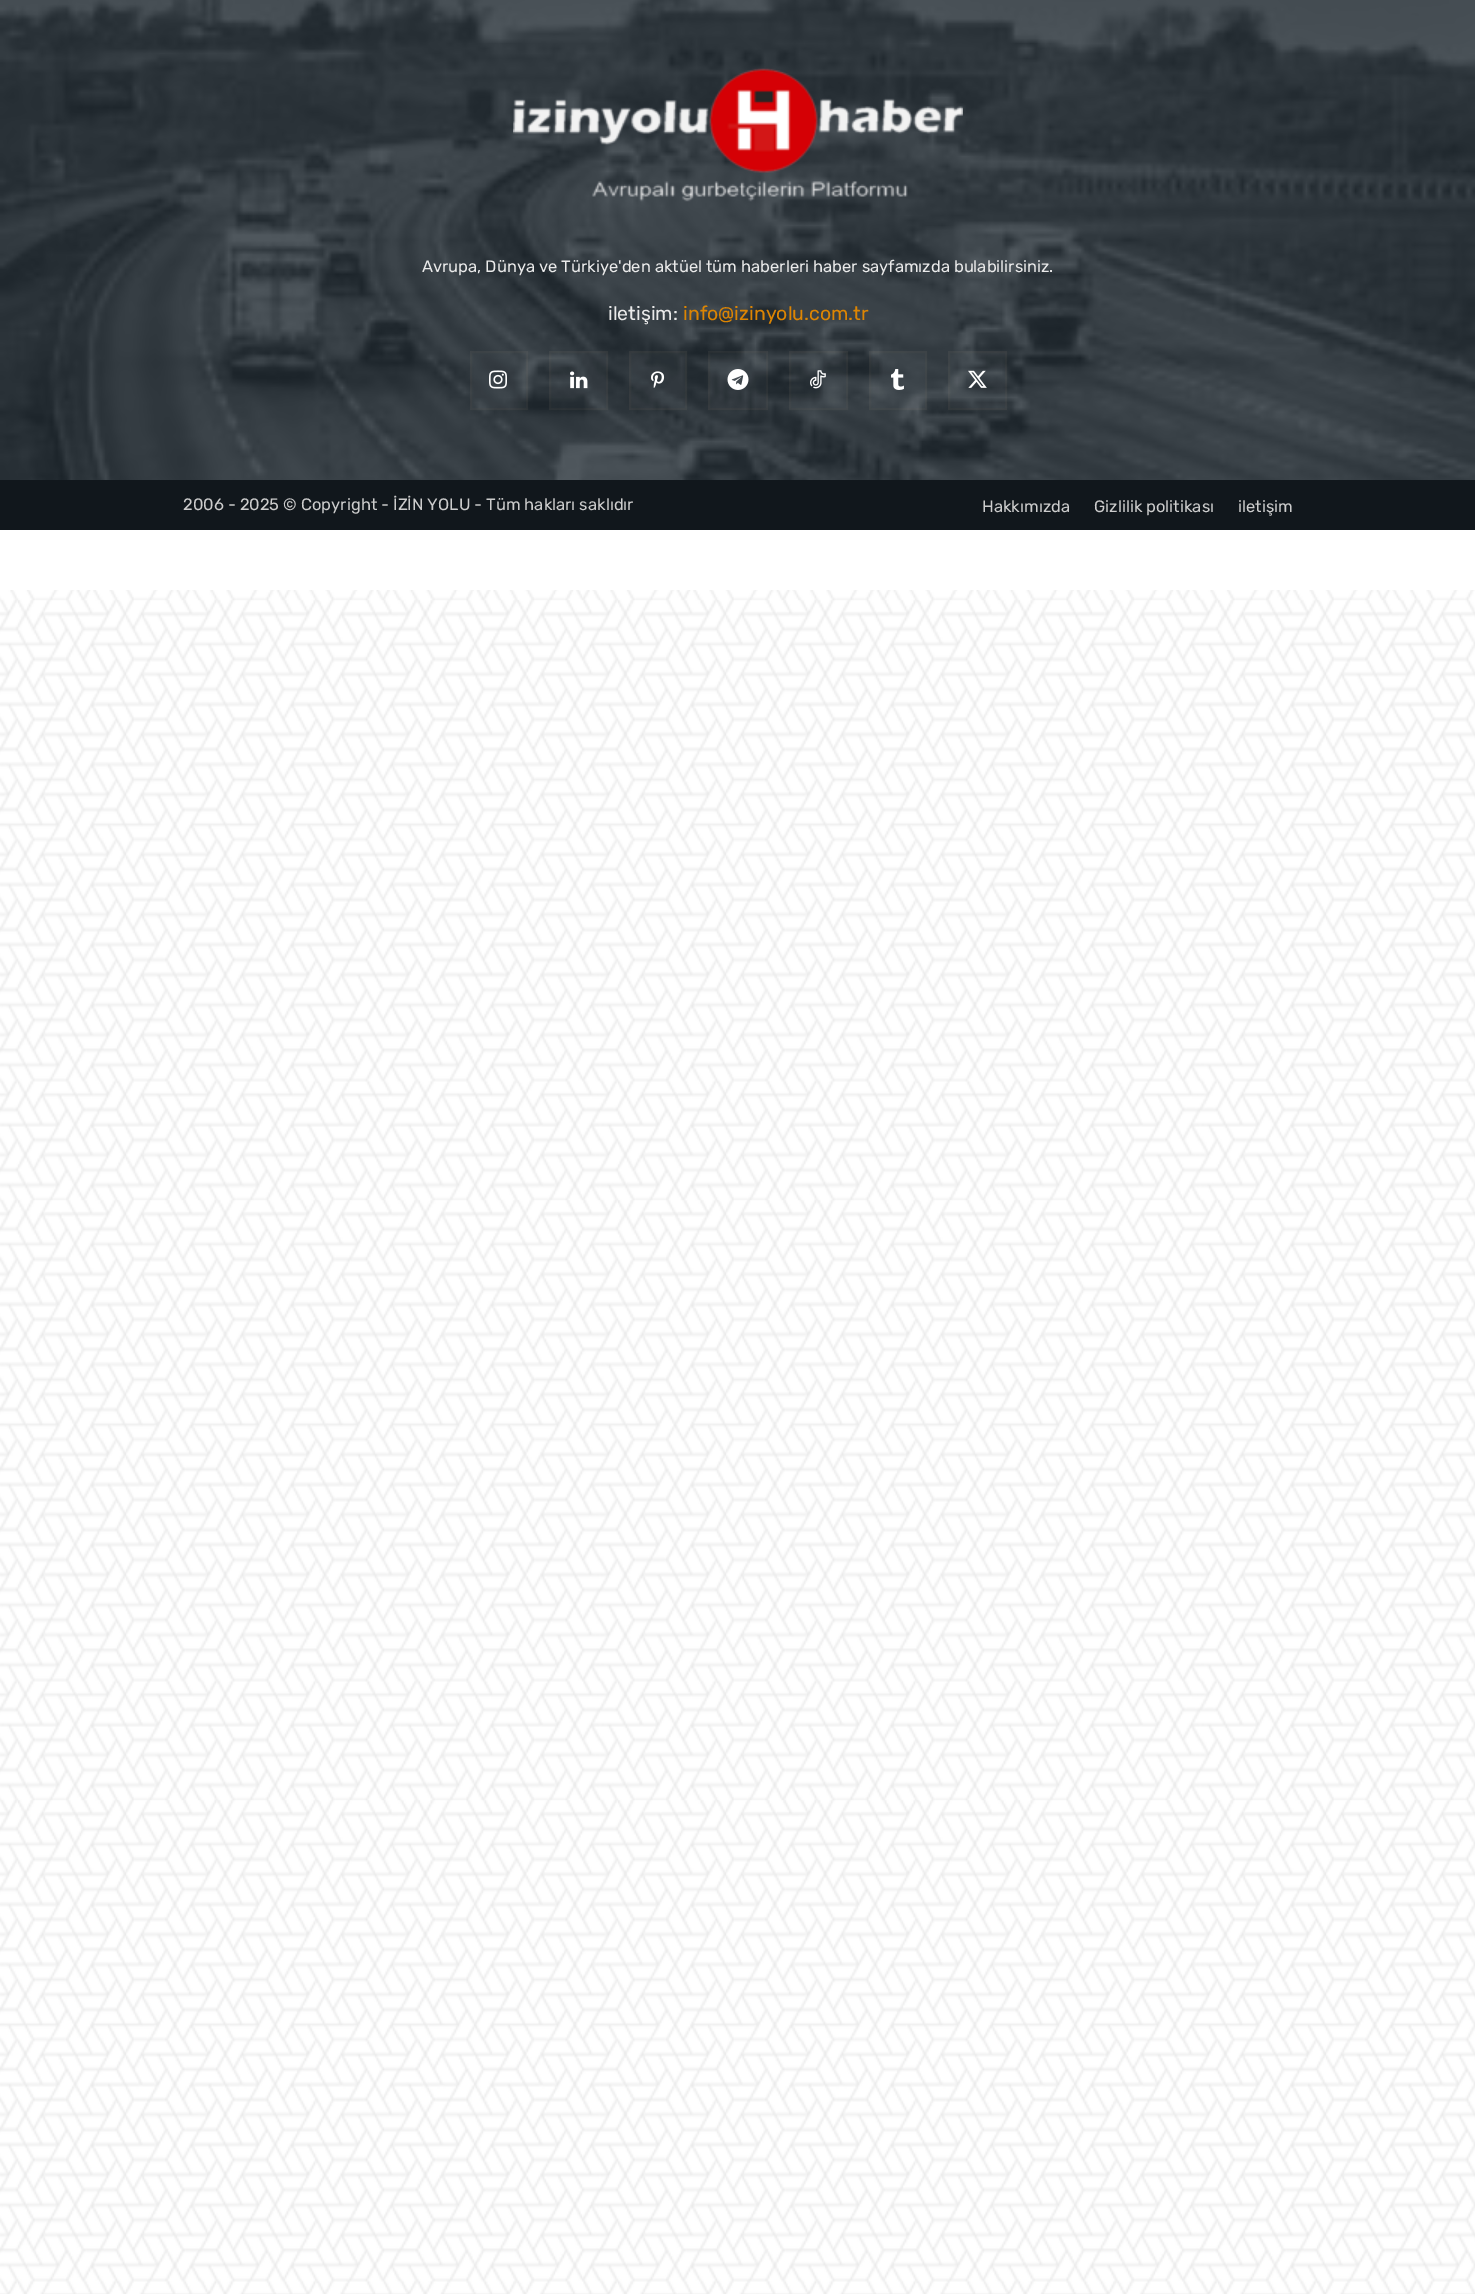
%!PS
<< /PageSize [1475 2294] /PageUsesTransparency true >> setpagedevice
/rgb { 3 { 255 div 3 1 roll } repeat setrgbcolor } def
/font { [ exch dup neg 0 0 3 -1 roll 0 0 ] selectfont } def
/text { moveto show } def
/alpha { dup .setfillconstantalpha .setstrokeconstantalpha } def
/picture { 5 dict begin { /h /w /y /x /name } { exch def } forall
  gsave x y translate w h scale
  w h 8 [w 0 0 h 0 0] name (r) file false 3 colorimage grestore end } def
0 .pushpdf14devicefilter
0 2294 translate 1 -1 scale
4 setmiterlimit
255 255 255 rgb
0 0 1475 2294 rectfill
(img_01.rgb) 0 590 1475 1704 picture
35 45 53 rgb
0 0 1475 480 rectfill
(img_02.rgb) 0 0 1475 480 picture
(img_03.rgb) 513 68 450 134 picture
0.03 alpha
255 255 255 rgb
470 351 58 59 rectfill
203 149 88 rgb
2 setlinewidth
471 352 56 57 rectstroke
1 alpha
(img_04.rgb) 489 370 18 19 picture
0.03 alpha
255 255 255 rgb
549 351 59 59 rectfill
203 149 88 rgb
550 352 57 57 rectstroke
1 alpha
(img_05.rgb) 570 371 18 18 picture
0.03 alpha
255 255 255 rgb
629 351 58 59 rectfill
203 149 88 rgb
630 352 56 57 rectstroke
1 alpha
(img_06.rgb) 651 371 14 17 picture
0.03 alpha
255 255 255 rgb
708 351 60 59 rectfill
203 149 88 rgb
709 352 58 57 rectstroke
1 alpha
(img_07.rgb) 727 369 22 21 picture
0.03 alpha
255 255 255 rgb
789 351 59 59 rectfill
203 149 88 rgb
790 352 57 57 rectstroke
1 alpha
(img_08.rgb) 810 370 16 19 picture
0.03 alpha
255 255 255 rgb
869 351 58 59 rectfill
203 149 88 rgb
870 352 56 57 rectstroke
1 alpha
(img_09.rgb) 891 369 13 21 picture
0.03 alpha
255 255 255 rgb
948 351 59 59 rectfill
203 149 88 rgb
949 352 57 57 rectstroke
1 alpha
(img_10.rgb) 968 370 19 18 picture
17 23 28 rgb
0 480 1475 50 rectfill
/Rubik-Regular 16.5 font
234 234 234 rgb
(Avrupa, Dünya ve Türkiye'den aktüel tüm haberleri haber sayfamızda bulabilirsiniz.) 422 272 text
/Rubik-Regular 19.5 font
(iletişim:) 608 320 text
221 133 2 rgb
(info@izinyolu.com.tr) 683 320 text
/Rubik-Regular 16.5 font
204 204 204 rgb
(2006 - 2025 © Copyright - İZİN YOLU - Tüm hakları saklıdır) 183 510 text
(Hakkımızda) 982 512 text
(Gizlilik politikası) 1094 512 text
(iletişim) 1238 512 text
.poppdf14devicefilter showpage
